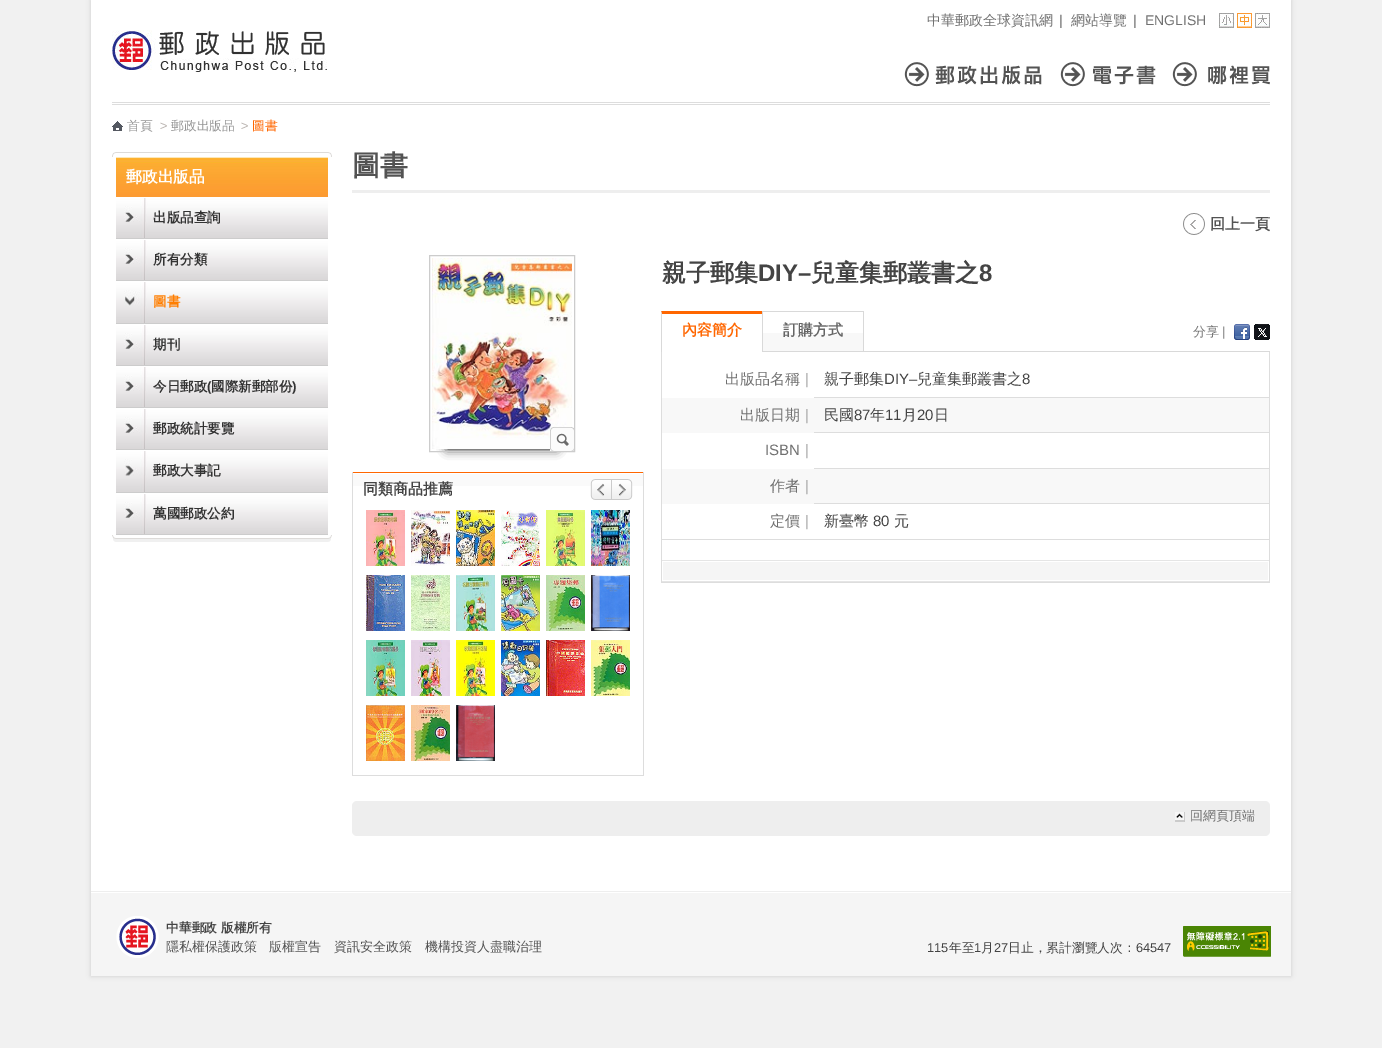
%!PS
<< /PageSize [1382 1048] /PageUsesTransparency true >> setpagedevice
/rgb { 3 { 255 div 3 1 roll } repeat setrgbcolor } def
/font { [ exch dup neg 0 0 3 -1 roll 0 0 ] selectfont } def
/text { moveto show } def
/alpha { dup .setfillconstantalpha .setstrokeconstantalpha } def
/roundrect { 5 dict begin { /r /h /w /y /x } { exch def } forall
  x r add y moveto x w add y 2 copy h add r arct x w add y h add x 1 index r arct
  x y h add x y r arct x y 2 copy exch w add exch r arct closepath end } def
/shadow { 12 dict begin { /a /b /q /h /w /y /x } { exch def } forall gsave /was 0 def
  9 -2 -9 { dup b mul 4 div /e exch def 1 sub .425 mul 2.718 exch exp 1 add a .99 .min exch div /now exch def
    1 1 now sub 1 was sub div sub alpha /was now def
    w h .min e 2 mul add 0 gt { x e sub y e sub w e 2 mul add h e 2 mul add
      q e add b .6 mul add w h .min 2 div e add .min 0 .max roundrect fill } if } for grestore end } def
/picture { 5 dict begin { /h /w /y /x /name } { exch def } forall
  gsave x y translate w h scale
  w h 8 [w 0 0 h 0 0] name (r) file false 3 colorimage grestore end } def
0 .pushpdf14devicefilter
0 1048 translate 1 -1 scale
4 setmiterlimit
241 241 241 rgb
0 0 1382 1048 rectfill
204 204 204 rgb
91 0 1200 976 0 2.5 1 shadow
255 255 255 rgb
91 0 1200 891 rectfill
221 221 221 rgb
112 102 1158 1 rectfill
112 104 1158 1 rectfill
(img_01.rgb) 1219 13 15 15 picture
(img_02.rgb) 1237 13 15 15 picture
(img_03.rgb) 1255 13 15 15 picture
(img_04.rgb) 112 30 215 42 picture
(img_05.rgb) 904 62 157 25 picture
(img_06.rgb) 1061 62 112 25 picture
(img_07.rgb) 1173 62 97 25 picture
(img_08.rgb) 112 121 11 10 picture
(img_09.rgb) 112 152 220 5 picture
(img_10.rgb) 116 157 212 40 picture
(img_11.rgb) 116 198 212 40 picture
204 204 204 rgb
116 238 212 1 rectfill
(img_11.rgb) 116 240 212 40 picture
116 280 212 1 rectfill
(img_12.rgb) 116 282 212 41 picture
116 323 212 1 rectfill
(img_11.rgb) 116 325 212 40 picture
116 365 212 1 rectfill
(img_11.rgb) 116 367 212 40 picture
116 407 212 1 rectfill
(img_11.rgb) 116 409 212 40 picture
116 449 212 1 rectfill
(img_13.rgb) 116 451 212 41 picture
116 492 212 1 rectfill
(img_11.rgb) 116 494 212 40 picture
116 534 212 1 rectfill
(img_14.rgb) 112 535 220 7 picture
238 238 238 rgb
352 190 918 3 rectfill
(img_15.rgb) 1183 213 22 22 picture
0 0 0 rgb
447 288 110 161 0 5 1 shadow
204 204 204 rgb
429.5 255.5 145 196 rectstroke
(img_16.rgb) 432 258 140 191 picture
(img_17.rgb) 550 427 24 24 picture
250 250 250 rgb
353 474 290 12 rectfill
255 102 0 rgb
352 472 292 1 rectfill
221 221 221 rgb
643 472 1 304 rectfill
352 775 292 1 rectfill
352 472 1 304 rectfill
(img_18.rgb) 590 479 22 21 picture
(img_19.rgb) 612 479 21 21 picture
(img_20.rgb) 366 510 39 56 picture
(img_21.rgb) 411 510 39 56 picture
(img_22.rgb) 456 510 39 56 picture
(img_23.rgb) 501 510 39 56 picture
(img_24.rgb) 546 510 39 56 picture
(img_25.rgb) 591 510 39 56 picture
(img_26.rgb) 366 575 39 56 picture
(img_27.rgb) 411 575 39 56 picture
(img_28.rgb) 456 575 39 56 picture
(img_29.rgb) 501 575 39 56 picture
(img_30.rgb) 546 575 39 56 picture
(img_31.rgb) 591 575 39 56 picture
(img_32.rgb) 366 640 39 56 picture
(img_33.rgb) 411 640 39 56 picture
(img_34.rgb) 456 640 39 56 picture
(img_35.rgb) 501 640 39 56 picture
(img_36.rgb) 546 640 39 56 picture
(img_37.rgb) 591 640 39 56 picture
(img_38.rgb) 366 705 39 56 picture
(img_39.rgb) 411 705 39 56 picture
(img_40.rgb) 456 705 39 56 picture
217 217 217 rgb
763 351 507 1 rectfill
255 102 0 rgb
661 311 moveto 102 0 rlineto -1 3 rlineto -100 0 rlineto closepath fill
217 217 217 rgb
763 311 moveto 0 41 rlineto -1 0 rlineto 0 -38 rlineto closepath fill
661 352 moveto 0 -41 rlineto 1 3 rlineto 0 38 rlineto closepath fill
248 248 248 rgb
763 333 100 18 rectfill
217 217 217 rgb
762 311 102 1 rectfill
863 311 1 40 rectfill
762 311 1 3 rectfill
(img_41.rgb) 1234 324 16 16 picture
(img_42.rgb) 1254 324 16 16 picture
221 221 221 rgb
1269 352 1 231 rectfill
661 582 609 1 rectfill
661 352 1 231 rectfill
813 397 457 1 rectfill
813 432 457 1 rectfill
248 248 248 rgb
662 398 152 35 rectfill
255 255 255 rgb
813 397 1 1 rectfill
248 248 248 rgb
814 398 455 34 rectfill
221 221 221 rgb
813 468 457 1 rectfill
813 503 457 1 rectfill
248 248 248 rgb
662 469 152 35 rectfill
255 255 255 rgb
813 468 1 1 rectfill
248 248 248 rgb
814 469 455 34 rectfill
221 221 221 rgb
662 539 608 1 rectfill
245 245 245 rgb
663 562 605 18 rectfill
229 229 229 rgb
662 560 607 1 rectfill
662 581 607 1 rectfill
238 238 238 rgb
352 801 918 35 5 roundrect fill
(img_43.rgb) 1175 812 10 10 picture
245 245 245 rgb
91 893 1200 83 rectfill
238 238 238 rgb
91 891 1200 1 rectfill
255 255 255 rgb
91 892 1200 1 rectfill
(img_44.rgb) 116 916 43 42 picture
(img_45.rgb) 1183 926 88 31 picture
/WenQuanYiZenHei-Medium 14 font
112 112 112 rgb
(中華郵政全球資訊網) 927 25 text
/LiberationSans-Regular 14 font
(|) 1059 25 text
/WenQuanYiZenHei-Medium 14 font
(網站導覽) 1071 25 text
/LiberationSans-Regular 14 font
(|) 1133 25 text
(ENGLISH) 1145 25 text
/WenQuanYiZenHei-Medium 12.75 font
149 149 149 rgb
(首頁) 127 130 text
/LiberationSans-Regular 12.75 font
184 178 174 rgb
(>) 160 130 text
/WenQuanYiZenHei-Medium 12.75 font
149 149 149 rgb
(郵政出版品) 171 130 text
/LiberationSans-Regular 12.75 font
184 178 174 rgb
(>) 241 130 text
/WenQuanYiZenHei-Medium 12.75 font
255 102 0 rgb
(圖書) 252 130 text
/WenQuanYiZenHei-Bold 15.75 font
255 255 255 rgb
(郵政出版品) 126 182 text
/WenQuanYiZenHei-Bold 13.5 font
51 51 51 rgb
(出版品查詢) 153 222 text
(所有分類) 153 264 text
255 126 0 rgb
(圖書) 153 306 text
51 51 51 rgb
(期刊) 153 349 text
(今日郵政) 153 391 text
/LiberationSans-Bold 13.5 font
(\() 207 391 text
/WenQuanYiZenHei-Bold 13.5 font
(國際新郵部份) 211 391 text
/LiberationSans-Bold 13.5 font
(\)) 292 391 text
/WenQuanYiZenHei-Bold 13.5 font
(郵政統計要覽) 153 433 text
(郵政大事記) 153 475 text
(萬國郵政公約) 153 518 text
/WenQuanYiZenHei-Bold 28 font
83 83 83 rgb
(圖書) 352 175 text
/WenQuanYiZenHei-Bold 15 font
(回上一頁) 1210 229 text
68 68 68 rgb
(同類商品推薦) 363 494 text
/WenQuanYiZenHei-Bold 24 font
(親子郵集) 662 281 text
/LiberationSans-Bold 24 font
(DIY–) 758 281 text
/WenQuanYiZenHei-Bold 24 font
(兒童集郵叢書之) 811 281 text
/LiberationSans-Bold 24 font
(8) 979 281 text
/WenQuanYiZenHei-Bold 15 font
255 102 0 rgb
(內容簡介) 682 335 text
102 102 102 rgb
(訂購方式) 783 335 text
/WenQuanYiZenHei-Medium 13 font
119 119 119 rgb
(分享) 1193 336 text
/LiberationSans-Regular 13 font
(|) 1222 336 text
/WenQuanYiZenHei-Medium 15 font
112 112 112 rgb
(出版品名稱) 725 384 text
/LiberationSans-Regular 15 font
170 170 170 rgb
(|) 805 384 text
/WenQuanYiZenHei-Medium 15 font
68 68 68 rgb
(親子郵集) 824 384 text
/LiberationSans-Regular 15 font
(DIY–) 884 384 text
/WenQuanYiZenHei-Medium 15 font
(兒童集郵叢書之) 917 384 text
/LiberationSans-Regular 15 font
(8) 1022 384 text
/WenQuanYiZenHei-Medium 15 font
112 112 112 rgb
(出版日期) 740 420 text
/LiberationSans-Regular 15 font
170 170 170 rgb
(|) 805 420 text
/WenQuanYiZenHei-Medium 15 font
68 68 68 rgb
(民國) 824 420 text
/LiberationSans-Regular 15 font
(87) 854 420 text
/WenQuanYiZenHei-Medium 15 font
(年) 870 420 text
/LiberationSans-Regular 15 font
(11) 885 420 text
/WenQuanYiZenHei-Medium 15 font
(月) 902 420 text
/LiberationSans-Regular 15 font
(20) 917 420 text
/WenQuanYiZenHei-Medium 15 font
(日) 934 420 text
/LiberationSans-Regular 15 font
112 112 112 rgb
(ISBN) 765 455 text
170 170 170 rgb
(|) 805 455 text
/WenQuanYiZenHei-Medium 15 font
112 112 112 rgb
(作者) 770 491 text
/LiberationSans-Regular 15 font
170 170 170 rgb
(|) 805 491 text
/WenQuanYiZenHei-Medium 15 font
112 112 112 rgb
(定價) 770 526 text
/LiberationSans-Regular 15 font
170 170 170 rgb
(|) 805 526 text
/WenQuanYiZenHei-Medium 15 font
68 68 68 rgb
(新臺幣) 824 526 text
/LiberationSans-Regular 15 font
(80) 873 526 text
/WenQuanYiZenHei-Medium 15 font
(元) 894 526 text
/WenQuanYiZenHei-Medium 13 font
112 112 112 rgb
(回網頁頂端) 1190 820 text
/WenQuanYiZenHei-Bold 12.75 font
68 68 68 rgb
(中華郵政 版權所有) 166 932 text
/WenQuanYiZenHei-Medium 13 font
83 83 83 rgb
(隱私權保護政策) 166 951 text
(版權宣告) 269 951 text
(資訊安全政策) 334 951 text
(機構投資人盡職治理) 425 951 text
/LiberationSans-Regular 12.75 font
68 68 68 rgb
(115) 927 952 text
/WenQuanYiZenHei-Medium 12.75 font
(年至) 949 952 text
/LiberationSans-Regular 12.75 font
(1) 974 952 text
/WenQuanYiZenHei-Medium 12.75 font
(月) 981 952 text
/LiberationSans-Regular 12.75 font
(27) 994 952 text
/WenQuanYiZenHei-Medium 12.75 font
(日止，累計瀏覽人次：) 1008 952 text
/LiberationSans-Regular 12.75 font
(64547) 1136 952 text
.poppdf14devicefilter showpage
